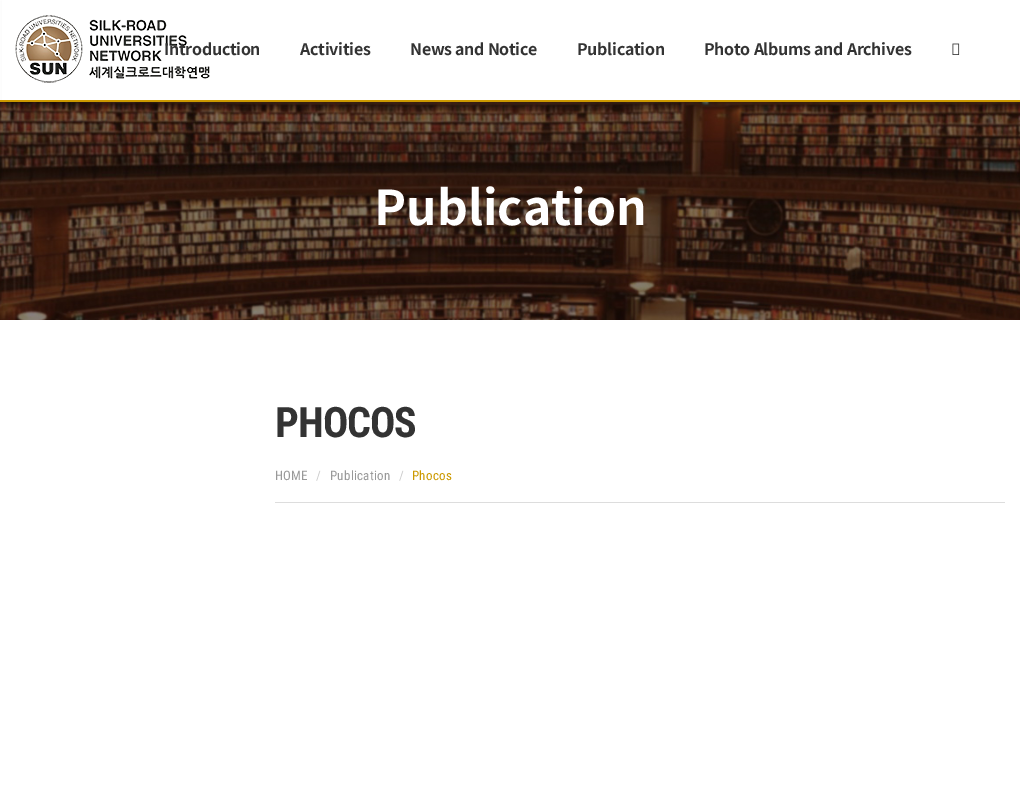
%!PS
<< /PageSize [1020 807] /PageUsesTransparency true >> setpagedevice
/rgb { 3 { 255 div 3 1 roll } repeat setrgbcolor } def
/font { [ exch dup neg 0 0 3 -1 roll 0 0 ] selectfont } def
/text { moveto show } def
/alpha { dup .setfillconstantalpha .setstrokeconstantalpha } def
/roundrect { 5 dict begin { /r /h /w /y /x } { exch def } forall
  x r add y moveto x w add y 2 copy h add r arct x w add y h add x 1 index r arct
  x y h add x y r arct x y 2 copy exch w add exch r arct closepath end } def
/shadow { 12 dict begin { /a /b /q /h /w /y /x } { exch def } forall gsave /was 0 def
  9 -2 -9 { dup b mul 4 div /e exch def 1 sub .425 mul 2.718 exch exp 1 add a .99 .min exch div /now exch def
    1 1 now sub 1 was sub div sub alpha /was now def
    w h .min e 2 mul add 0 gt { x e sub y e sub w e 2 mul add h e 2 mul add
      q e add b .6 mul add w h .min 2 div e add .min 0 .max roundrect fill } if } for grestore end } def
/picture { 5 dict begin { /h /w /y /x /name } { exch def } forall
  gsave x y translate w h scale
  w h 8 [w 0 0 h 0 0] name (r) file false 3 colorimage grestore end } def
0 .pushpdf14devicefilter
0 807 translate 1 -1 scale
4 setmiterlimit
255 255 255 rgb
0 0 1020 807 rectfill
(img_03.rgb) 0 102 1020 218 picture
0 0 0 rgb
5 0 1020 102 0 2.5 0.1 shadow
255 255 255 rgb
2 0 1018 100 rectfill
(img_01.rgb) 15 15 195 68 picture
(img_02.rgb) 952 43 8 12 picture
204 153 0 rgb
0 100 1020 2 rectfill
221 221 221 rgb
275 502 730 1 rectfill
/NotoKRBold-Bold 16 font
51 51 51 rgb
164 55 moveto -0.3 0 (Introduction) ashow
300 55 moveto -0.3 0 (Activities) ashow
410 55 moveto -0.3 0 (News and Notice) ashow
577 55 moveto -0.3 0 (Publication) ashow
704 55 moveto -0.3 0 (Photo Albums and Archives) ashow
/NotoKRBold-Bold 48 font
255 255 255 rgb
(Publication) 374 225 text
/RobotoCondensed-Bold 42 font
51 51 51 rgb
275 437 moveto -1 0 (PHOCOS) ashow
/RobotoCondensed-Regular 13 font
153 153 153 rgb
275 480 moveto 0.25 0 (HOME) ashow
204 204 204 rgb
316 480 moveto 0.25 0 (/) ashow
153 153 153 rgb
330 480 moveto 0.25 0 (Publication) ashow
204 204 204 rgb
399 480 moveto 0.25 0 (/) ashow
204 153 0 rgb
412 480 moveto 0.25 0 (Phocos) ashow
.poppdf14devicefilter showpage
